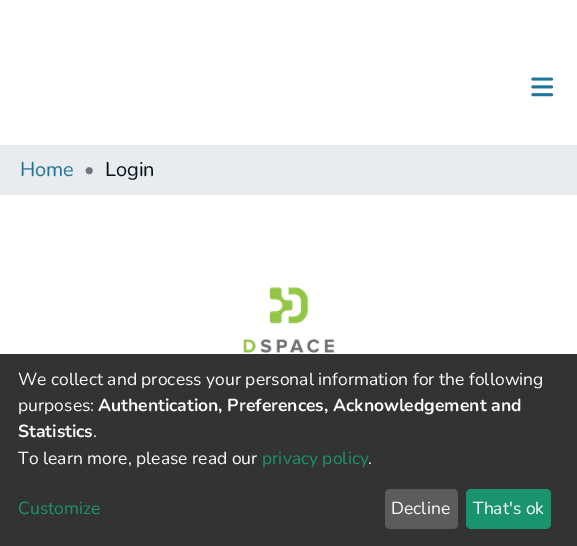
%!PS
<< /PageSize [577 546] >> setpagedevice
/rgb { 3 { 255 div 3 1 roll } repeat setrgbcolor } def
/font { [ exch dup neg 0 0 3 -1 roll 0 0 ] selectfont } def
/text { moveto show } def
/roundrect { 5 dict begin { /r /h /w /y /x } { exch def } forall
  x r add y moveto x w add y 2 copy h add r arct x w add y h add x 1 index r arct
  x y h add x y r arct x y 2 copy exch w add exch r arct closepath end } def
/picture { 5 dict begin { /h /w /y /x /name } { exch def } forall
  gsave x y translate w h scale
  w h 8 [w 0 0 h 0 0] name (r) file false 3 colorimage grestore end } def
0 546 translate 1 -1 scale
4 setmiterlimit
255 255 255 rgb
0 0 577 546 rectfill
(img_01.rgb) 531 77 23 20 picture
233 236 239 rgb
0 145 577 50 rectfill
(img_02.rgb) 243 287 91 66 picture
51 51 51 rgb
0 354 577 192 rectfill
92 92 92 rgb
385 489 73 40 5 roundrect fill
26 147 111 rgb
466 489 85 40 5 roundrect fill
/Nunito-Regular 20 font
32 118 152 rgb
(Home) 20 176 text
108 117 125 rgb
(•) 84 176 text
5 20 26 rgb
(Login) 105 176 text
/Nunito-Regular 17.5 font
250 250 250 rgb
(We collect and process your personal information for the following) 18 385 text
(purposes:) 18 411 text
/Nunito-Bold 17.5 font
(Authentication, Preferences, Acknowledgement and) 98 411 text
(Statistics) 18 437 text
/Nunito-Regular 17.5 font
(.) 93 437 text
(To learn more, please read our) 18 464 text
26 147 111 rgb
(privacy policy) 262 464 text
250 250 250 rgb
(.) 368 464 text
26 147 111 rgb
(Customize) 18 514 text
250 250 250 rgb
(Decline) 391 514 text
(That's ok) 473 514 text
showpage
